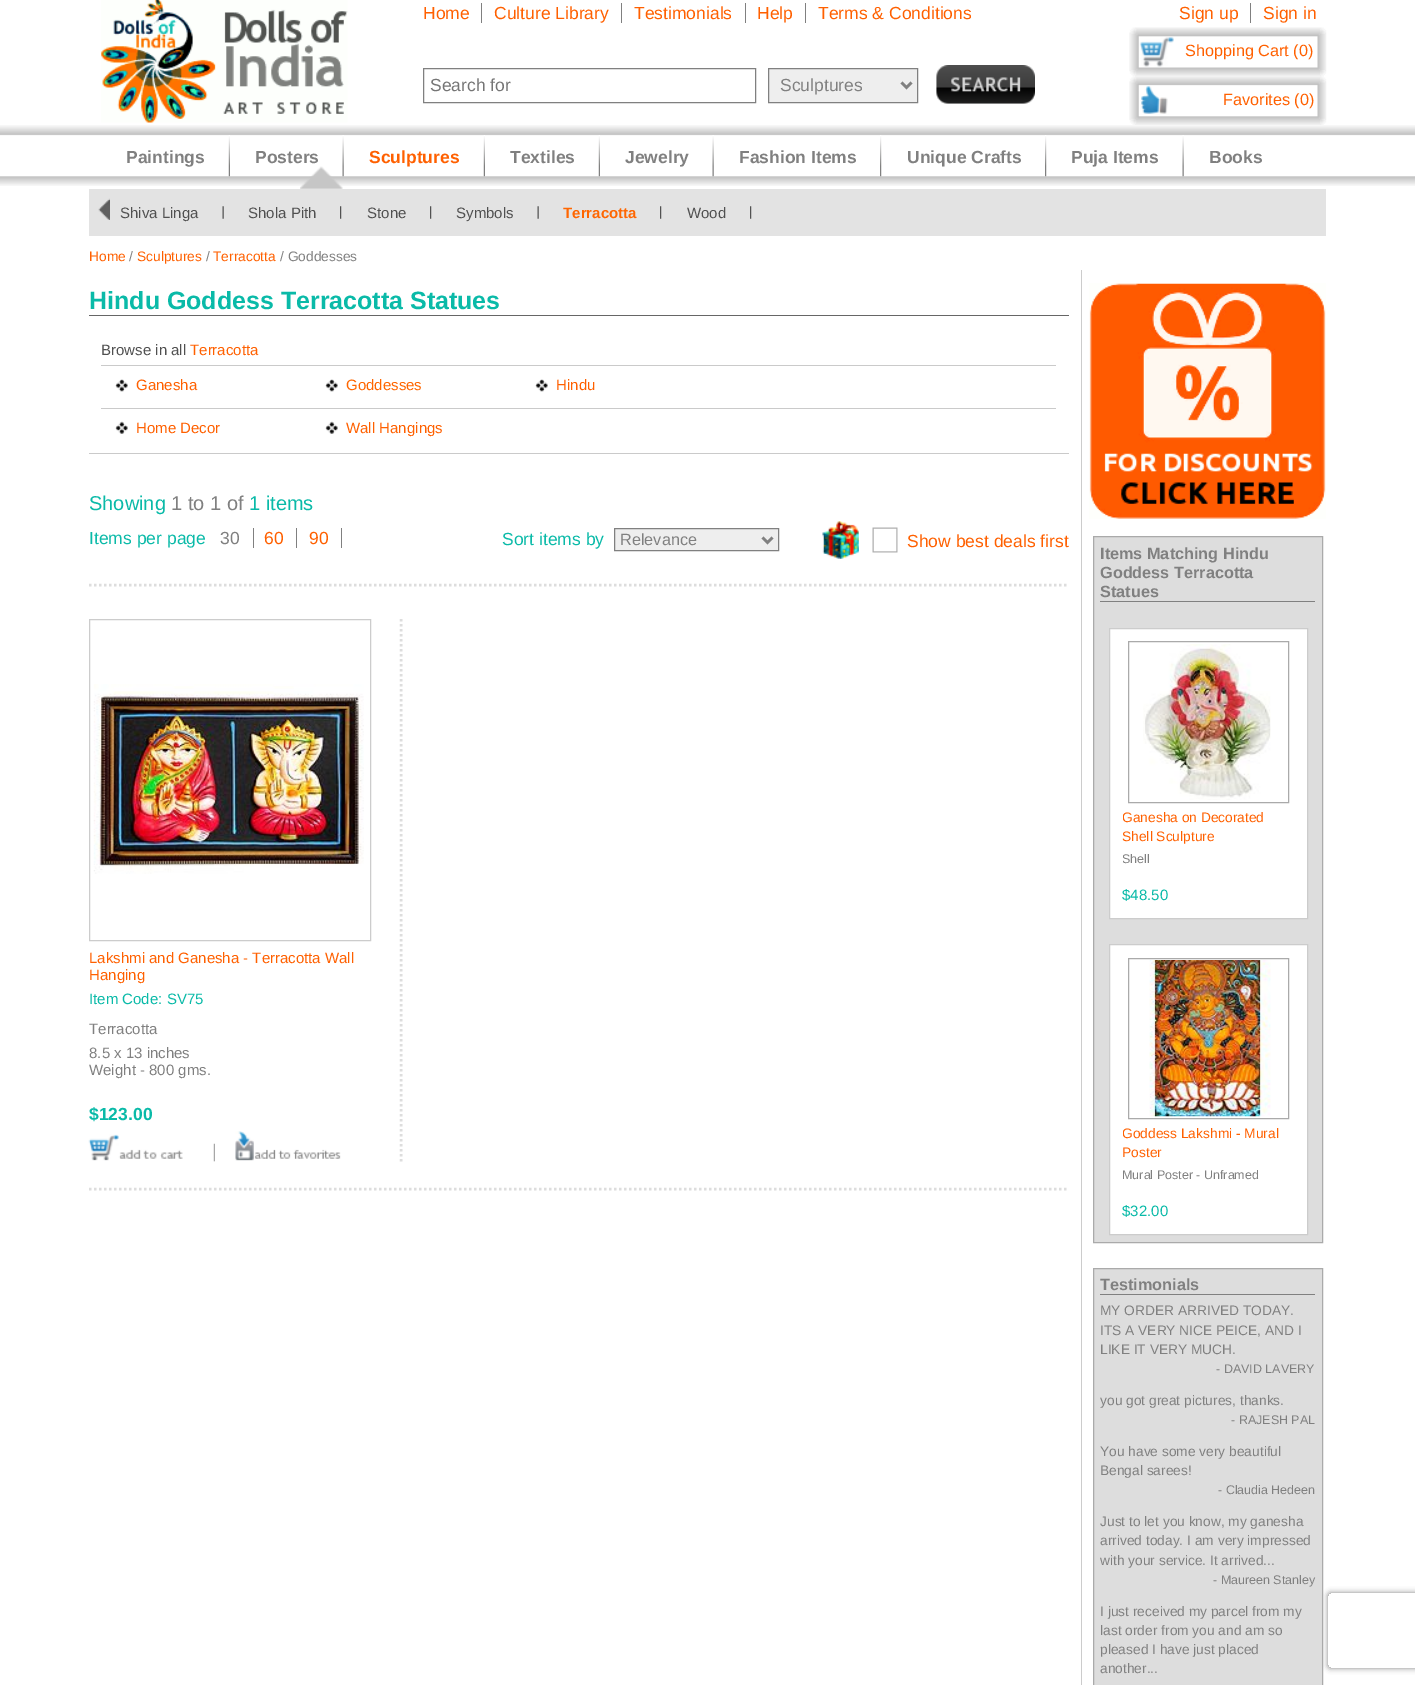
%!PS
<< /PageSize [1415 1685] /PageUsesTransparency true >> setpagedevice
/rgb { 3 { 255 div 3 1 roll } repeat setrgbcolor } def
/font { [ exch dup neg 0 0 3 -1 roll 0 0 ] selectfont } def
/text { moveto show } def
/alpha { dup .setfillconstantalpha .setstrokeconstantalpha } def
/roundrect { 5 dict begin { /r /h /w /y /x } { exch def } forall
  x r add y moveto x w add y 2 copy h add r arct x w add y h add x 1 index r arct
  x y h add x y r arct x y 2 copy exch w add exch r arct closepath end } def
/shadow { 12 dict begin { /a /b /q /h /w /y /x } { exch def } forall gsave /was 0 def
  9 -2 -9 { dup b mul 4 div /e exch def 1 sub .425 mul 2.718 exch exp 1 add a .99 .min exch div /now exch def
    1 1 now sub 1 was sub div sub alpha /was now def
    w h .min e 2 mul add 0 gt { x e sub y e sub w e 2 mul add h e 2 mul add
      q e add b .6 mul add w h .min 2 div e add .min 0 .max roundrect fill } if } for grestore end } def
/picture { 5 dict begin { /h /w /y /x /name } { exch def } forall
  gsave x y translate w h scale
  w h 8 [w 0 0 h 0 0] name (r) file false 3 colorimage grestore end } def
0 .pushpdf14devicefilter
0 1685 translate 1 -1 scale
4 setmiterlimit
255 255 255 rgb
0 0 1415 1685 rectfill
(img_01.rgb) 101 0 247 123 picture
128 128 128 rgb
481 3 1 20 rectfill
621 3 1 20 rectfill
745 3 1 20 rectfill
805 3 1 20 rectfill
423.5 68.5 332 34 rectstroke
238 238 238 rgb
768.5 68.5 moveto 149 0 rlineto 0 34 rlineto -149 0 rlineto closepath gsave fill grestore
128 128 128 rgb
stroke
2.5 setlinewidth
901.5 82.5 moveto 5 5 rlineto 5 -5 rlineto stroke
(img_02.rgb) 936 65 99 39 picture
1250 3 1 20 rectfill
(img_03.rgb) 1129 27 198 50 picture
(img_04.rgb) 1129 76 198 49 picture
(img_05.rgb) 0 125 1415 61 picture
(img_06.rgb) 228 135 2 42 picture
(img_07.rgb) 342 135 2 42 picture
(img_06.rgb) 483 135 2 42 picture
(img_06.rgb) 598 135 2 42 picture
(img_07.rgb) 712 135 2 42 picture
(img_08.rgb) 880 135 2 42 picture
(img_08.rgb) 1045 135 2 42 picture
(img_07.rgb) 1182 135 2 42 picture
227 227 227 rgb
89 189 1237 47 rectfill
(img_09.rgb) 300 166 43 23 picture
(img_10.rgb) 98 198 12 22 picture
(img_11.rgb) 222 206 2 13 picture
(img_12.rgb) 340 206 2 13 picture
(img_12.rgb) 430 206 2 13 picture
(img_11.rgb) 537 206 2 13 picture
(img_12.rgb) 660 206 2 13 picture
(img_12.rgb) 750 206 2 13 picture
204 204 204 rgb
1081 270 1 1415 rectfill
102 102 102 rgb
89 315 980 1 rectfill
202 202 202 rgb
89 453 980 1 rectfill
101 365 955 1 rectfill
(img_13.rgb) 115 379 13 13 picture
(img_14.rgb) 325 379 13 13 picture
(img_14.rgb) 535 379 13 13 picture
101 408 955 1 rectfill
(img_15.rgb) 115 421 13 13 picture
(img_16.rgb) 325 421 13 13 picture
128 128 128 rgb
253 528 1 20 rectfill
296 528 1 20 rectfill
341 528 1 20 rectfill
238 238 238 rgb
614.5 528.5 moveto 164 0 rlineto 0 22 rlineto -164 0 rlineto closepath gsave fill grestore
128 128 128 rgb
1 setlinewidth
stroke
2.5 setlinewidth
762.5 537.5 moveto 5 5 rlineto 5 -5 rlineto stroke
(img_17.rgb) 822 521 37 38 picture
(img_18.rgb) 872 527 26 26 picture
221 221 221 rgb
[2.5 2.5] 0 setdash
89 585 moveto 980 0 rlineto stroke
401 619 moveto 0 543.5 rlineto stroke
204 204 204 rgb
1 setlinewidth
[] 0 setdash
89.5 619.5 281 321 rectstroke
(img_19.rgb) 93 684 271 190 picture
(img_20.rgb) 88 1134 95 27 picture
(img_21.rgb) 213 1143 2 19 picture
(img_22.rgb) 235 1131 106 30 picture
221 221 221 rgb
2.5 setlinewidth
[2.5 2.5] 0 setdash
89 1189 moveto 980 0 rlineto stroke
(img_23.rgb) 1089 283 237 236 picture
1093.5 536.5 moveto 229 0 rlineto 0 706 rlineto -229 0 rlineto closepath gsave fill grestore
170 170 170 rgb
1 setlinewidth
[] 0 setdash
stroke
128 128 128 rgb
1100 601 215 1 rectfill
255 255 255 rgb
1109.5 628.5 moveto 198 0 rlineto 0 290 rlineto -198 0 rlineto closepath gsave fill grestore
204 204 204 rgb
stroke
170 170 170 rgb
1128.5 641.5 160 161 rectstroke
(img_24.rgb) 1143 644 128 156 picture
255 255 255 rgb
1109.5 944.5 moveto 198 0 rlineto 0 290 rlineto -198 0 rlineto closepath gsave fill grestore
204 204 204 rgb
stroke
170 170 170 rgb
1128.5 958.5 160 160 rectstroke
(img_25.rgb) 1149 960 122 157 picture
221 221 221 rgb
1093.5 1268.5 moveto 229 0 rlineto 0 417 rlineto -229 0 rlineto closepath gsave fill grestore
170 170 170 rgb
stroke
128 128 128 rgb
1100 1294 215 1 rectfill
gsave
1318 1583 moveto 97 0 rlineto 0 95 rlineto -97 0 rlineto closepath 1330.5 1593 moveto 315 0 rlineto 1.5 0 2.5 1 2.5 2.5 rcurveto 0 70 rlineto 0 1.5 -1 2.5 -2.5 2.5 rcurveto -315 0 rlineto -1.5 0 -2.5 -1 -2.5 -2.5 rcurveto 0 -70 rlineto 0 -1.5 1 -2.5 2.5 -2.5 rcurveto closepath eoclip newpath
1328 1593 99 75 2.5 3 1 shadow
grestore
/LiberationSans-Regular 17.5 font
255 96 0 rgb
(Home) 423 19 text
(Culture Library) 494 19 text
(Testimonials) 634 19 text
(Help) 757 19 text
(Terms & Conditions) 818 19 text
117 117 117 rgb
(Search for) 430 91 text
128 128 128 rgb
(Sculptures) 780 91 text
255 96 0 rgb
(Sign up) 1179 19 text
(Sign in) 1263 19 text
/LiberationSans-Regular 16.25 font
(Shopping Cart \(0\)) 1185 56 text
(Favorites \(0\)) 1223 105 text
/LiberationSans-Bold 17.5 font
128 128 128 rgb
(Paintings) 126 163 text
(Posters) 255 163 text
255 96 0 rgb
(Sculptures) 369 163 text
128 128 128 rgb
(Textiles) 510 163 text
(Jewelry) 625 163 text
(Fashion Items) 739 163 text
(Unique Crafts) 907 163 text
(Puja Items) 1071 163 text
(Books) 1209 163 text
/LiberationSans-Regular 15 font
80 80 80 rgb
(Shiva Linga) 120 218 text
(Shola Pith) 248 218 text
(Stone) 367 218 text
(Symbols) 456 218 text
/LiberationSans-Bold 15 font
255 102 0 rgb
(Terracotta) 563 218 text
/LiberationSans-Regular 15 font
80 80 80 rgb
(Wood) 687 218 text
/LiberationSans-Regular 13.75 font
255 96 0 rgb
(Home) 89 261 text
128 128 128 rgb
(/) 129 261 text
255 96 0 rgb
(Sculptures) 137 261 text
128 128 128 rgb
(/) 206 261 text
255 96 0 rgb
(Terracotta) 213 261 text
128 128 128 rgb
(/ Goddesses) 280 261 text
/LiberationSans-Bold 25 font
10 186 168 rgb
(Hindu Goddess Terracotta Statues) 89 309 text
/LiberationSans-Regular 15 font
80 80 80 rgb
(Browse in all) 101 355 text
255 96 0 rgb
(Terracotta) 190 355 text
(Ganesha) 136 390 text
255 102 0 rgb
(Goddesses) 346 390 text
255 96 0 rgb
(Hindu) 556 390 text
(Home Decor) 136 433 text
(Wall Hangings) 346 433 text
/LiberationSans-Regular 20 font
10 186 168 rgb
(Showing) 89 510 text
128 128 128 rgb
(1 to 1 of) 171 510 text
10 186 168 rgb
(1 items) 249 510 text
/LiberationSans-Regular 17.5 font
(Items per page) 89 544 text
128 128 128 rgb
(30) 220 544 text
255 96 0 rgb
(60) 264 544 text
(90) 309 544 text
10 186 168 rgb
(Sort items by) 502 545 text
/LiberationSans-Regular 16.25 font
128 128 128 rgb
(Relevance) 620 545 text
/LiberationSans-Regular 17.5 font
255 96 0 rgb
(Show best deals first) 907 547 text
/LiberationSans-Regular 15 font
(Lakshmi and Ganesha - Terracotta Wall) 89 963 text
(Hanging) 89 980 text
10 186 168 rgb
(Item Code: SV75) 89 1004 text
128 128 128 rgb
(Terracotta) 89 1034 text
(8.5 x 13 inches) 89 1058 text
(Weight - 800 gms.) 89 1075 text
/LiberationSans-Bold 17.5 font
10 186 168 rgb
($123.00) 89 1120 text
/LiberationSans-Bold 16.25 font
128 128 128 rgb
(Items Matching Hindu) 1100 559 text
(Goddess Terracotta) 1100 578 text
(Statues) 1100 597 text
gsave
1123 809 171 35 rectclip
/LiberationSans-Regular 13.75 font
255 96 0 rgb
(Ganesha on Decorated) 1122 822 text
grestore
/LiberationSans-Regular 13.75 font
255 96 0 rgb
(Shell Sculpture) 1122 841 text
gsave
1123 850 171 30 rectclip
/LiberationSans-Regular 12.5 font
128 128 128 rgb
(Shell) 1122 863 text
grestore
/LiberationSans-Regular 15 font
10 186 168 rgb
($48.50) 1122 900 text
gsave
1123 1124 171 35 rectclip
/LiberationSans-Regular 13.75 font
255 96 0 rgb
(Goddess Lakshmi - Mural) 1122 1138 text
grestore
/LiberationSans-Regular 13.75 font
255 96 0 rgb
(Poster) 1122 1157 text
gsave
1123 1165 171 30 rectclip
/LiberationSans-Regular 12.5 font
128 128 128 rgb
(Mural Poster - Unframed) 1122 1179 text
grestore
/LiberationSans-Regular 15 font
10 186 168 rgb
($32.00) 1122 1216 text
/LiberationSans-Bold 16.25 font
128 128 128 rgb
(Testimonials) 1100 1290 text
/LiberationSans-Regular 13.75 font
(MY ORDER ARRIVED TODAY.) 1100 1315 text
(ITS A VERY NICE PEICE, AND I) 1100 1335 text
(LIKE IT VERY MUCH.) 1100 1354 text
/LiberationSans-Regular 12.5 font
(- DAVID LAVERY) 1216 1373 text
/LiberationSans-Regular 13.75 font
(you got great pictures, thanks.) 1100 1405 text
/LiberationSans-Regular 12.5 font
(- RAJESH PAL) 1231 1424 text
/LiberationSans-Regular 13.75 font
(You have some very beautiful) 1100 1456 text
(Bengal sarees!) 1100 1475 text
/LiberationSans-Regular 12.5 font
(- Claudia Hedeen) 1218 1494 text
/LiberationSans-Regular 13.75 font
(Just to let you know, my ganesha) 1100 1526 text
(arrived today. I am very impressed) 1100 1545 text
(with your service. It arrived...) 1100 1565 text
/LiberationSans-Regular 12.5 font
(- Maureen Stanley) 1213 1584 text
/LiberationSans-Regular 13.75 font
(I just received my parcel from my) 1100 1616 text
(last order from you and am so) 1100 1635 text
(pleased I have just placed) 1100 1654 text
(another...) 1100 1673 text
.poppdf14devicefilter showpage
